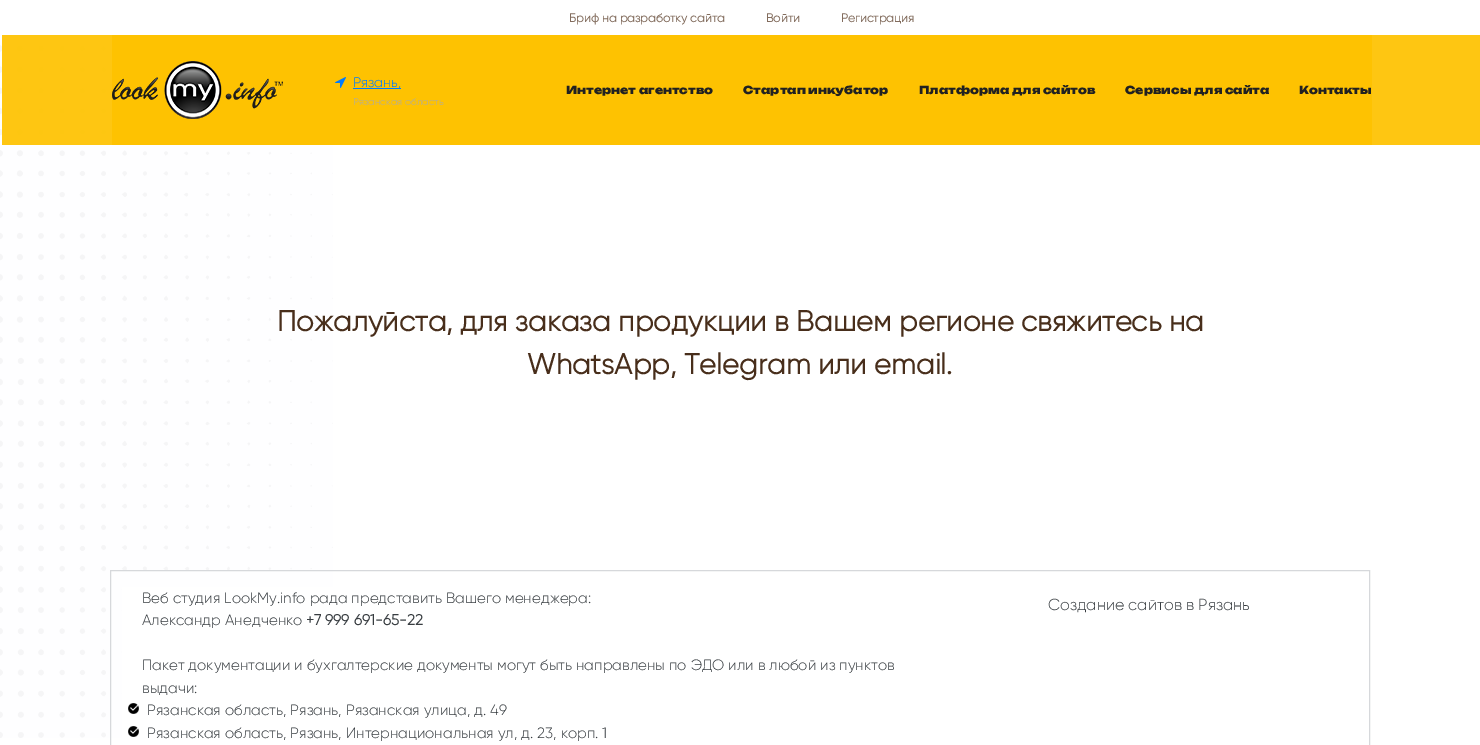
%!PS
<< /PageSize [1480 745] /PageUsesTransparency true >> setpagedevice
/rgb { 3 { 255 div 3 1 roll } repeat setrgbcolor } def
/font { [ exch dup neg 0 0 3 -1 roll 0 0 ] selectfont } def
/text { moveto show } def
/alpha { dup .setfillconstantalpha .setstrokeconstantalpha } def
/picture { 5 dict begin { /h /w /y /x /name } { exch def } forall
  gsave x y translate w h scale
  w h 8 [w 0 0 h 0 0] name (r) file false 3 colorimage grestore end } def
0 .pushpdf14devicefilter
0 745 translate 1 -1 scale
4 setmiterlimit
255 255 255 rgb
0 0 1480 745 rectfill
(img_01.rgb) 0 35 333 703 picture
0.93 alpha
254 194 0 rgb
2 35 1478 110 rectfill
1 alpha
254 194 1 rgb
112 35 1260 110 rectfill
(img_02.rgb) 112 61 171 58 picture
(img_03.rgb) 335 77 11 11 picture
0 123 255 rgb
353 88 48 1 rectfill
255 255 255 rgb
122 587 211 151 rectfill
214 216 219 rgb
110.5 570.5 1259 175 rectstroke
(img_04.rgb) 128 703 11 11 picture
(img_04.rgb) 128 726 11 11 picture
/Gilroy-Bold 12 font
130 108 93 rgb
(Бриф на разработку сайта) 569 22 text
(Войти) 766 22 text
(Регистрация) 841 22 text
/Gilroy-Light 14 font
0 123 255 rgb
(Рязань,) 353 87 text
/Gilroy-Light 10 font
170 170 170 rgb
(Рязанская область) 353 105 text
/Unbounded-Black 11 font
33 33 33 rgb
(Интернет агентство) 566 94 text
(Стартап инкубатор) 743 94 text
(Платформа для сайтов) 919 94 text
(Сервисы для сайта) 1125 94 text
(Контакты) 1299 94 text
/Gilroy-Bold 28.8 font
72 46 27 rgb
(Пожалуйста, для заказа продукции в Вашем регионе свяжитесь на) 277 331 text
(WhatsApp, Telegram или email.) 527 374 text
/Gilroy-Light 15 font
56 61 65 rgb
(Веб студия LookMy.info рада представить Вашего менеджера:) 142 603 text
(Александр Анедченко) 142 625 text
/Gilroy-Bold 15 font
(+7 999 691-65-22) 306 625 text
/Gilroy-Light 15 font
(Пакет документации и бухгалтерские документы могут быть направлены по ЭДО или в любой из пунктов) 142 670 text
(выдачи:) 142 693 text
/Gilroy-Light 16 font
(Создание сайтов в Рязань) 1048 610 text
/Gilroy-Light 15 font
(Рязанская область, Рязань, Рязанская улица, д. 49) 147 715 text
(Рязанская область, Рязань, Интернациональная ул, д. 23, корп. 1) 147 738 text
.poppdf14devicefilter showpage
